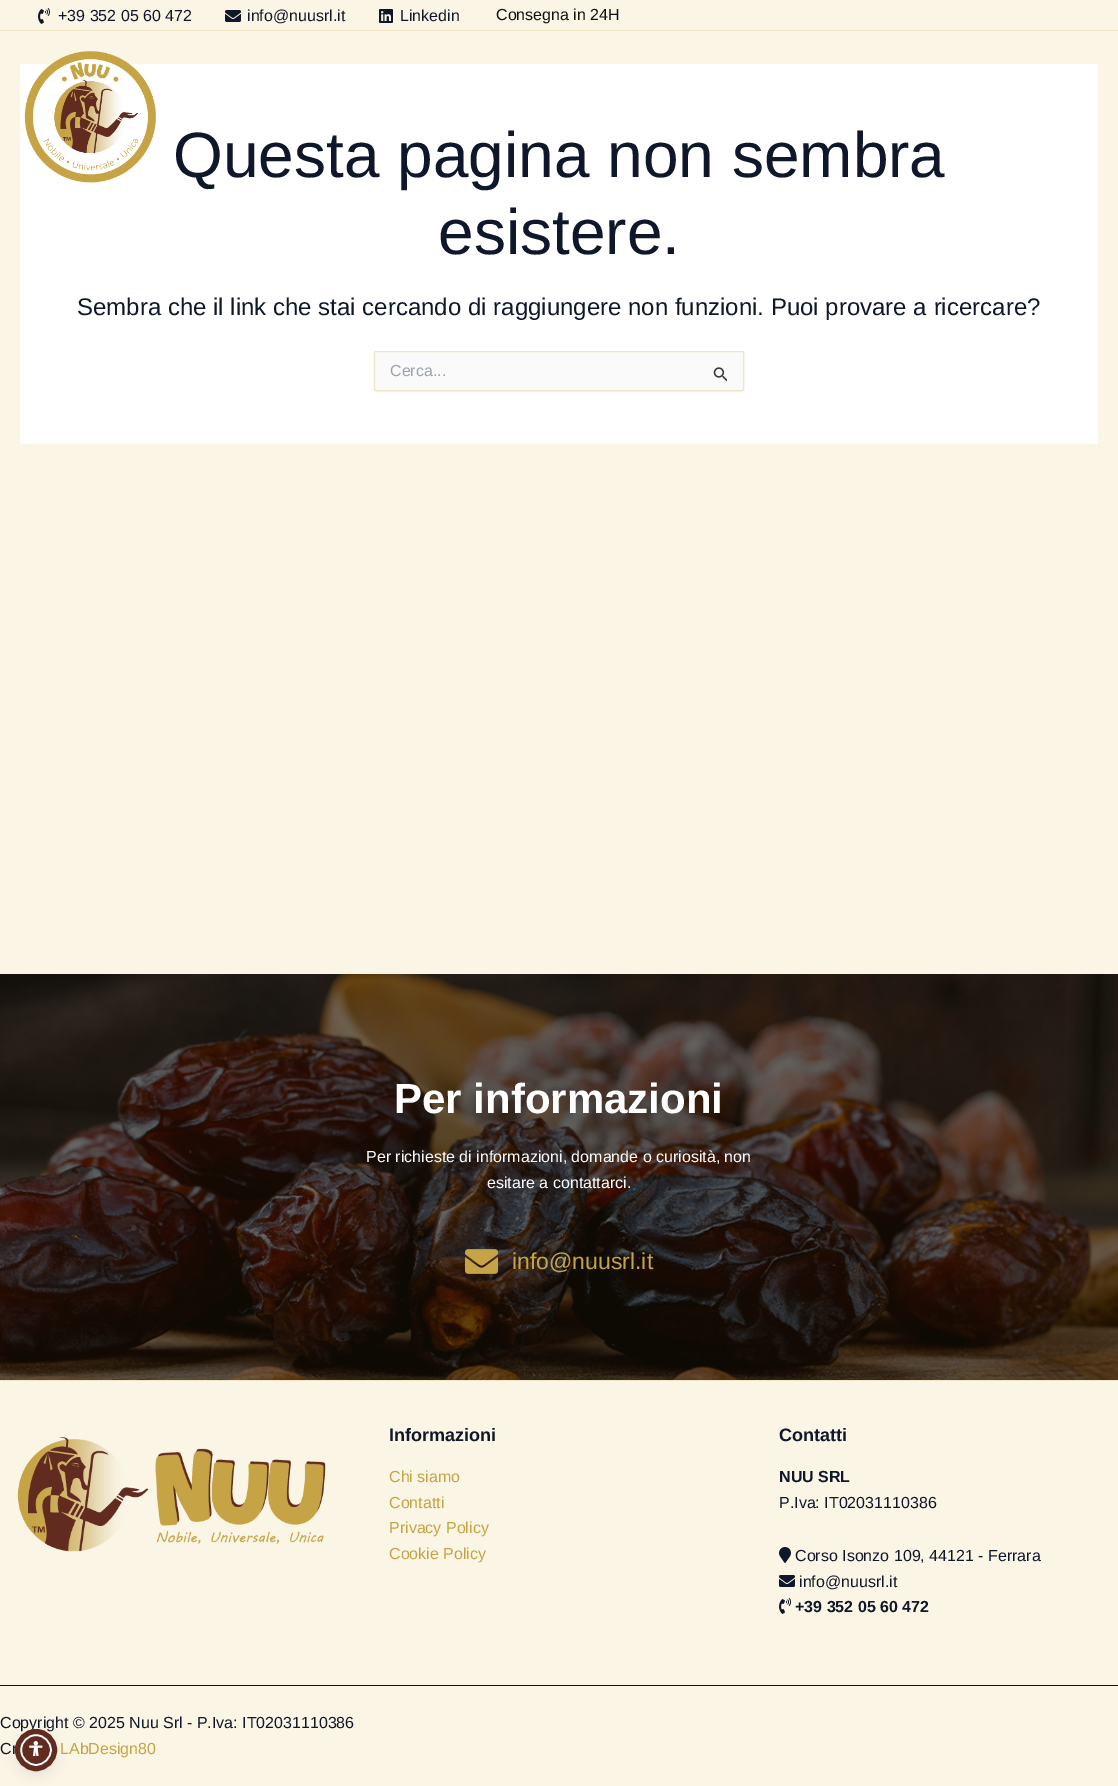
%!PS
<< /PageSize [1118 1786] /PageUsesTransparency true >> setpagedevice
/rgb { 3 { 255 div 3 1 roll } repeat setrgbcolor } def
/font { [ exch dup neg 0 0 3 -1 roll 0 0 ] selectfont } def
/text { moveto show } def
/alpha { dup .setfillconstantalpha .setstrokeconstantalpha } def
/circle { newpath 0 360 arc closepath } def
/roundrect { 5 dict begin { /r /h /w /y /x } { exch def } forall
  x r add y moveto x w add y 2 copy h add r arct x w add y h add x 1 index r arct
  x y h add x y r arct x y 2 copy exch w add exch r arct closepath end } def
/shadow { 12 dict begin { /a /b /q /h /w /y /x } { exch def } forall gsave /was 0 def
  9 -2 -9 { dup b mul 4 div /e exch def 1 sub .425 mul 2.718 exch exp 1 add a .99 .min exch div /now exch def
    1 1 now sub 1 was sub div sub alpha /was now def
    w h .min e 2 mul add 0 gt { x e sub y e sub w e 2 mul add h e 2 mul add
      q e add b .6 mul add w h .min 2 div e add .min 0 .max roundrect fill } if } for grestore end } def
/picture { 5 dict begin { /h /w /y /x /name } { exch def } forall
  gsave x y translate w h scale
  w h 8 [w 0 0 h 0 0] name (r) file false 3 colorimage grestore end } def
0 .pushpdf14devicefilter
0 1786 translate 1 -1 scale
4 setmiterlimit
250 245 229 rgb
0 0 1118 1786 rectfill
240 230 197 rgb
0 30 1118 1 rectfill
(img_01.rgb) 38 8 12 16 picture
(img_02.rgb) 225 10 16 12 picture
(img_03.rgb) 379 9 14 14 picture
255 255 255 rgb
20 64 1078 380 rectfill
(img_04.rgb) 24 51 132 132 picture
0 0 0 rgb
374 352 370 40 2 1 0.05 shadow
250 250 250 rgb
374.5 351.5 369 39 1.5 roundrect gsave fill grestore
240 230 197 rgb
stroke
(img_05.rgb) 713 367 14 15 picture
(img_06.rgb) 0 974 1118 406 picture
(img_07.rgb) 465 1249 33 25 picture
0 1380 1118 1 rectfill
(img_08.rgb) 17 1437 309 115 picture
(img_09.rgb) 779 1547 12 16 picture
(img_10.rgb) 779 1575 16 12 picture
(img_11.rgb) 779 1598 12 16 picture
17 17 17 rgb
0 1685 1118 1 rectfill
93 100 148 rgb
20 1736 32 32 16 2 0.2 shadow
37 44 97 rgb
20 1739 32 32 16 7.5 0.15 shadow
97 43 31 rgb
36 1750 15 circle gsave fill grestore
255 255 255 rgb
2 setlinewidth
stroke
/LiberationSans-Regular 16 font
15 23 42 rgb
(+39 352 05 60 472) 58 21 text
(info@nuusrl.it) 247 21 text
(Linkedin) 400 21 text
17 17 17 rgb
(Consegna in 24H) 496 20 text
/LiberationSans-Regular 64 font
15 23 42 rgb
(Questa pagina non sembra) 173 177 text
(esistere.) 438 254 text
/LiberationSans-Regular 24 font
(Sembra che il link che stai cercando di raggiungere non funzioni. Puoi provare a ricercare?) 77 315 text
/LiberationSans-Regular 16 font
156 163 175 rgb
(Cerca...) 390 376 text
/LiberationSans-Bold 42 font
255 255 255 rgb
(Per informazioni) 394 1113 text
/LiberationSans-Regular 16 font
(Per richieste di informazioni, domande o curiosità, non) 366 1162 text
(esitare a contattarci.) 487 1188 text
/LiberationSans-Regular 23 font
198 164 67 rgb
(info@nuusrl.it) 512 1269 text
/LiberationSans-Bold 18 font
15 23 42 rgb
(Informazioni) 389 1441 text
/LiberationSans-Regular 16 font
198 164 67 rgb
(Chi siamo) 389 1482 text
(Contatti) 389 1508 text
(Privacy Policy) 389 1533 text
(Cookie Policy) 389 1559 text
/LiberationSans-Bold 18 font
15 23 42 rgb
(Contatti) 779 1441 text
/LiberationSans-Bold 16 font
(NUU SRL) 779 1482 text
/LiberationSans-Regular 16 font
(P.Iva: IT02031110386) 779 1508 text
(Corso Isonzo 109, 44121 - Ferrara) 795 1561 text
(info@nuusrl.it) 799 1587 text
/LiberationSans-Bold 16 font
(+39 352 05 60 472) 795 1612 text
/LiberationSans-Regular 16 font
(Copyright © 2025 Nuu Srl - P.Iva: IT02031110386) 0 1728 text
(Cr) 0 1754 text
198 164 67 rgb
(LAbDesign80) 60 1754 text
97 43 31 rgb
5 setlinewidth
36 1750 18.5 circle stroke
(img_12.rgb) 29 1741 14 15 picture
.poppdf14devicefilter showpage
